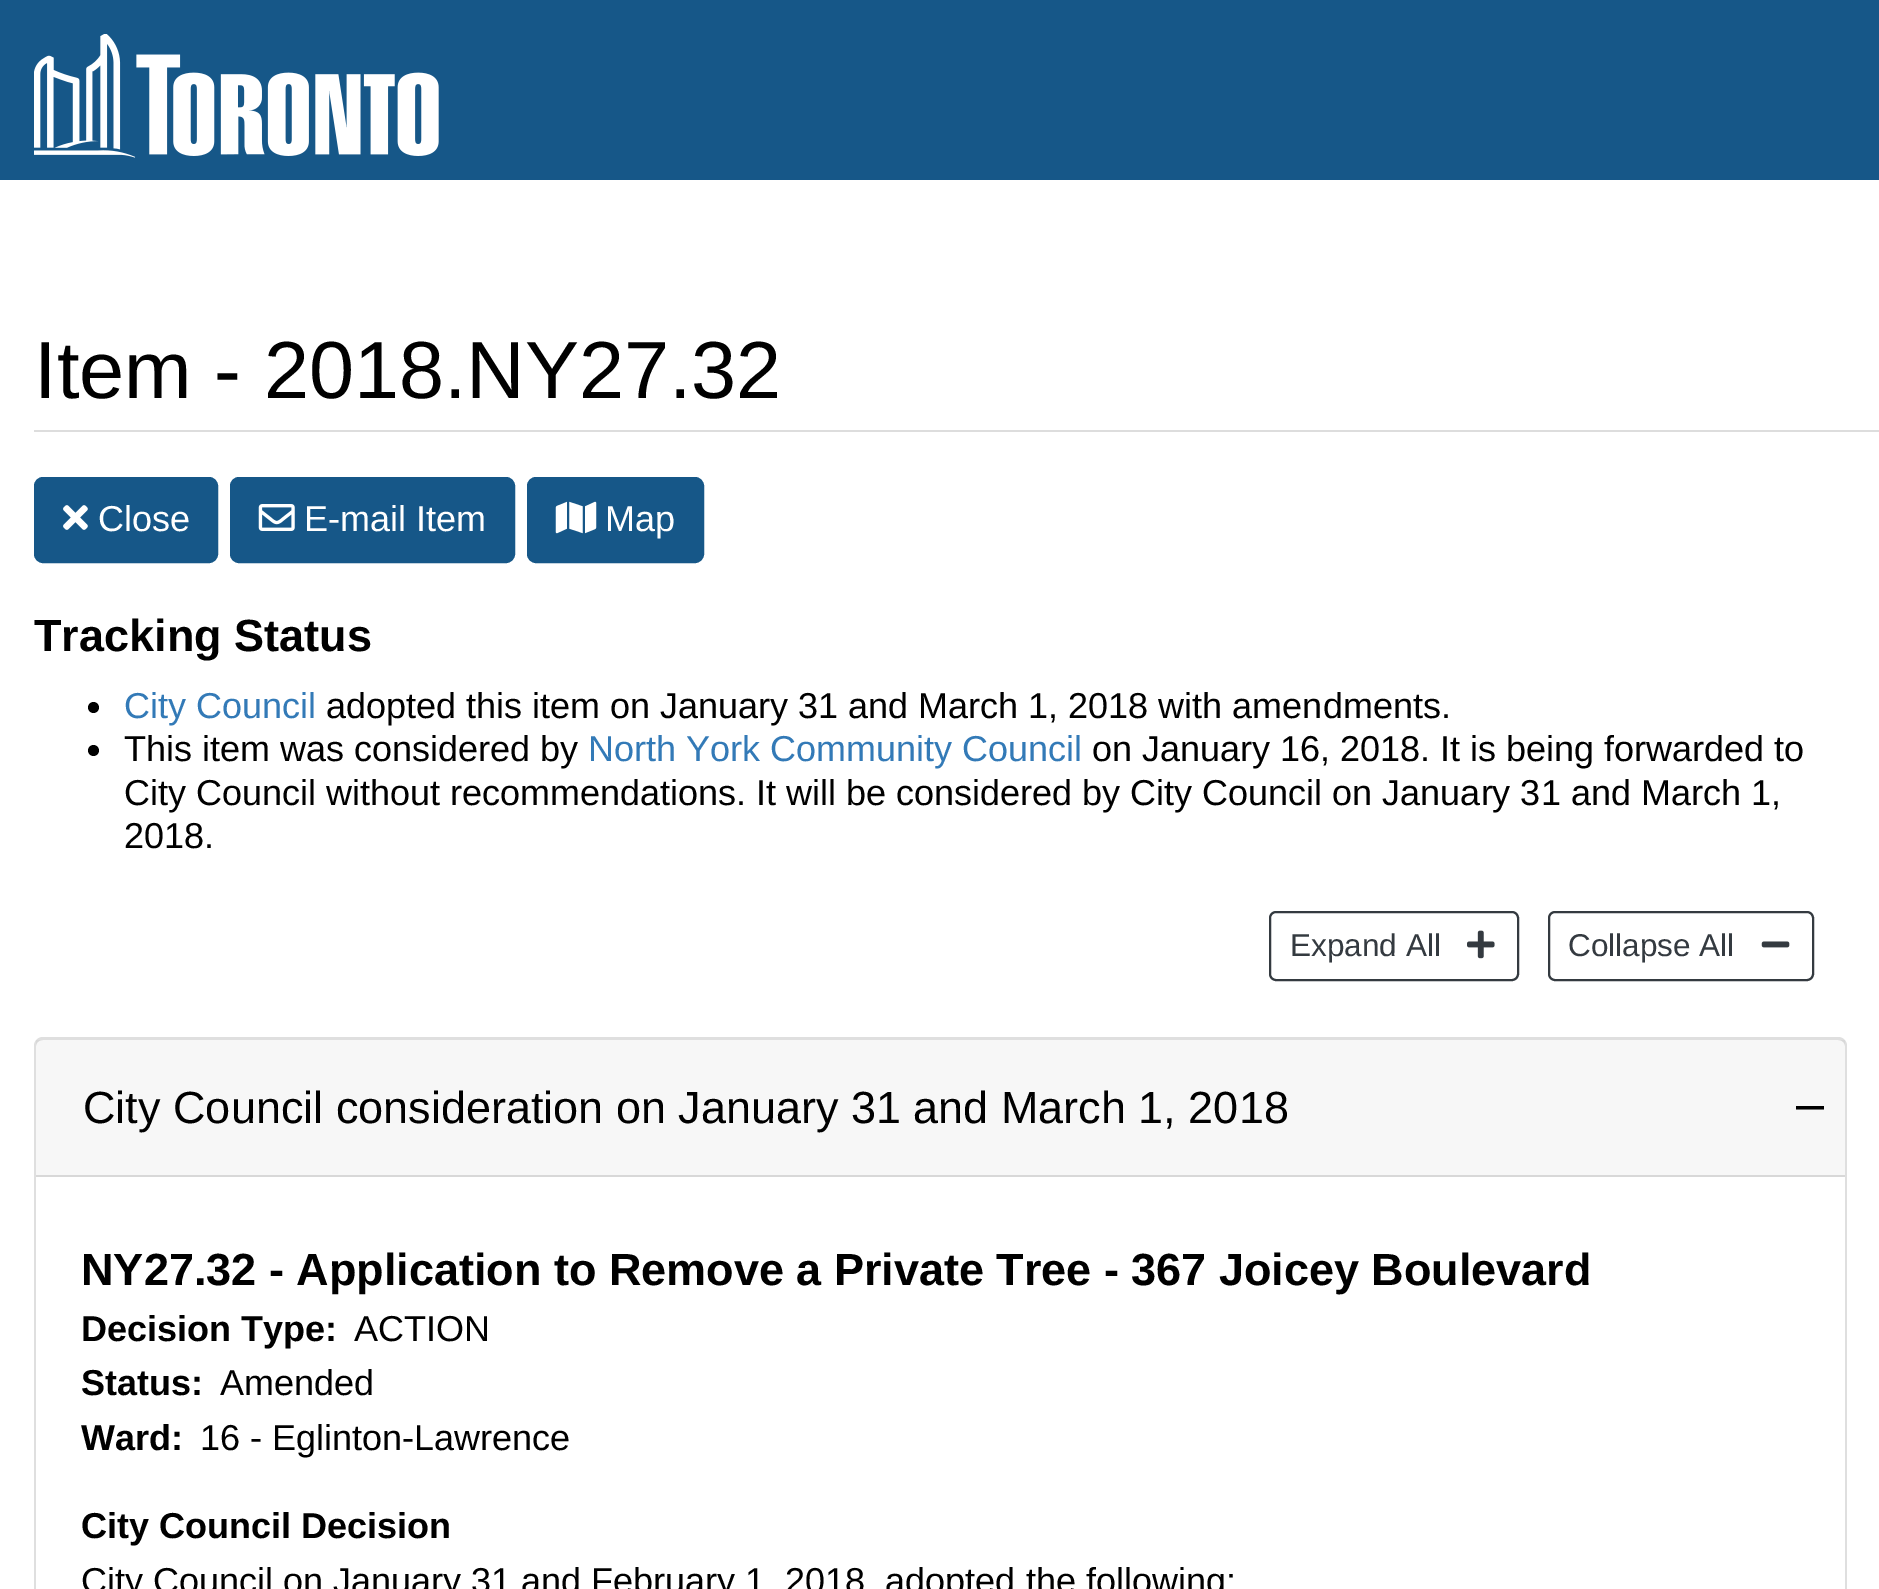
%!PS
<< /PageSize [1879 1589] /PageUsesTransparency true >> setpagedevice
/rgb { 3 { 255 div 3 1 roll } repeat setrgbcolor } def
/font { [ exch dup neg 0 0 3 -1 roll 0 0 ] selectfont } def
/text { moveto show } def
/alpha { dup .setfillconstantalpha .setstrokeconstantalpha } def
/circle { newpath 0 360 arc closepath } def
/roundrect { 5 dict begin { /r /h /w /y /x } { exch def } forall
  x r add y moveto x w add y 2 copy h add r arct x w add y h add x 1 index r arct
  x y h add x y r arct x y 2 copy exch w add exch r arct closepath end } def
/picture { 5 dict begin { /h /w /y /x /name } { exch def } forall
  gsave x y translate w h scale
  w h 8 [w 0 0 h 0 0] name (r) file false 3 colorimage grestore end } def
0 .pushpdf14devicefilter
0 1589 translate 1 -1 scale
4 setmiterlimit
255 255 255 rgb
0 0 1879 1589 rectfill
22 87 136 rgb
0 0 1879 180 rectfill
(img_01.rgb) 34 34 405 124 picture
221 221 221 rgb
34 430 1845 2 rectfill
22 87 136 rgb
35 478 182 84 8 roundrect gsave fill grestore
2 setlinewidth
stroke
(img_02.rgb) 63 505 25 25 picture
231 478 283 84 8 roundrect gsave fill grestore
stroke
(img_03.rgb) 258 504 37 27 picture
528 478 175 84 8 roundrect gsave fill grestore
stroke
(img_04.rgb) 555 501 42 33 picture
0 0 0 rgb
93.5 707.5 5.5 circle fill
93.5 750.5 5.5 circle fill
52 58 64 rgb
1270 912 248 68 6 roundrect stroke
(img_05.rgb) 1467 930 28 29 picture
1549 912 264 68 6 roundrect stroke
(img_06.rgb) 1761 941 29 7 picture
223 223 223 rgb
43 1037 moveto 1795 0 rlineto 5 0 9 4 9 9 rcurveto 0 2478 rlineto -1813 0 rlineto 0 -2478 rlineto 0 -5 4 -9 9 -9 rcurveto closepath 43 1040 moveto 1795 0 rlineto 4 0 7 3 7 6 rcurveto 0 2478 rlineto -1809 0 rlineto 0 -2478 rlineto 0 -3 3 -6 7 -6 rcurveto closepath eofill
0.03 alpha
0 0 0 rgb
36 1040 1809 135 rectfill
1 alpha
216 216 216 rgb
36 1175 1809 2 rectfill
0 0 0 rgb
1811.5 1106 moveto 12.5 0 rlineto 0 3.5 rlineto -28 0 rlineto 0 -3.5 rlineto closepath fill
/LiberationSans-Regular 81 font
(Item - 2018.NY27.32) 34 398 text
/LiberationSans-Regular 36 font
255 255 255 rgb
(Close) 98 531 text
(E-mail Item) 304 531 text
(Map) 605 531 text
/LiberationSans-Bold 45 font
0 0 0 rgb
(Tracking Status) 34 651 text
/LiberationSans-Regular 36 font
51 122 183 rgb
(City Council) 124 718 text
0 0 0 rgb
(adopted this item on January 31 and March 1, 2018 with amendments.) 326 718 text
(This item was considered by) 124 761 text
51 122 183 rgb
(North York Community Council) 588 761 text
0 0 0 rgb
(on January 16, 2018. It is being forwarded to) 1092 761 text
(City Council without recommendations. It will be considered by City Council on January 31 and March 1,) 124 805 text
(2018.) 124 848 text
/LiberationSans-Regular 31.5 font
52 58 64 rgb
(Expand All) 1290 956 text
(Collapse All) 1568 956 text
/LiberationSans-Regular 45 font
0 0 0 rgb
(City Council consideration on January 31 and March 1, 2018) 83 1123 text
/LiberationSans-Bold 45 font
(NY27.32 - Application to Remove a Private Tree - 367 Joicey Boulevard) 81 1285 text
/LiberationSans-Bold 36 font
(Decision Type:) 81 1341 text
/LiberationSans-Regular 36 font
(ACTION) 354 1341 text
/LiberationSans-Bold 36 font
(Status:) 81 1395 text
/LiberationSans-Regular 36 font
(Amended) 220 1395 text
/LiberationSans-Bold 36 font
(Ward:) 81 1450 text
/LiberationSans-Regular 36 font
(16 - Eglinton-Lawrence) 200 1450 text
/LiberationSans-Bold 36 font
(City Council Decision) 81 1538 text
/LiberationSans-Regular 36 font
(City Council on January 31 and February 1, 2018, adopted the following:) 81 1593 text
.poppdf14devicefilter showpage
